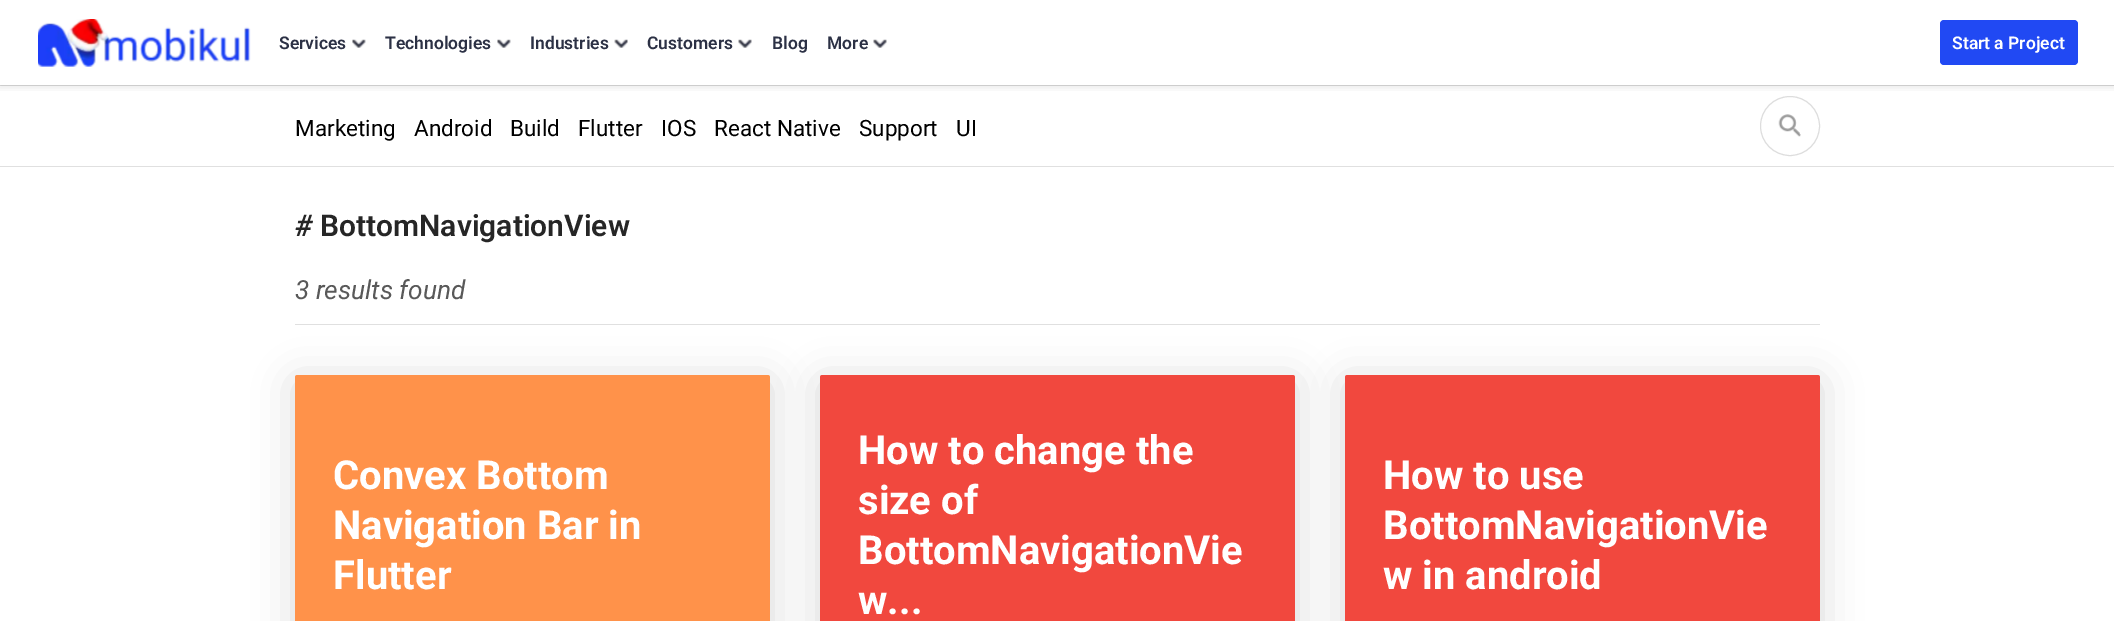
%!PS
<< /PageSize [2114 621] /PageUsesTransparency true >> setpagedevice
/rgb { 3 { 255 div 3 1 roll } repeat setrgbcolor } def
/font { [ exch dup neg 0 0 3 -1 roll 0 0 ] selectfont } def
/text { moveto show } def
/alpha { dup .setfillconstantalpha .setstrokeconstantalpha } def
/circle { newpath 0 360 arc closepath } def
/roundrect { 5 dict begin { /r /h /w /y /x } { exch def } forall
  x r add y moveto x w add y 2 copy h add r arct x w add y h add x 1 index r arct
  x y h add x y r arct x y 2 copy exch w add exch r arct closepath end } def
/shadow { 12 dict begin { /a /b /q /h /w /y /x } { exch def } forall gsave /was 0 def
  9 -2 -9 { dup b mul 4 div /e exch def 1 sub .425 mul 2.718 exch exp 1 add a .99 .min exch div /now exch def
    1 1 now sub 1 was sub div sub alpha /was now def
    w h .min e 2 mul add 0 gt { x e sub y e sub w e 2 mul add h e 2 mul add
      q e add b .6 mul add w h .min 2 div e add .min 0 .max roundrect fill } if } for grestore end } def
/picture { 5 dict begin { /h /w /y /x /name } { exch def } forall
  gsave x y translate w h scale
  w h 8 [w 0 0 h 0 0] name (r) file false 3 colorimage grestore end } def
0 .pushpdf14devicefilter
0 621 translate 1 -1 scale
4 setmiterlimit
255 255 255 rgb
0 0 2114 621 rectfill
224 224 224 rgb
0 85 2114 1 rectfill
(img_06.rgb) 1778 114 23 23 picture
221 221 221 rgb
1790 126 29.5 circle stroke
gsave
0 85 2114 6 rectclip
0 0 0 rgb
0 0 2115 85 0 5 0.16 shadow
grestore
(img_01.rgb) 38 19 213 48 picture
(img_02.rgb) 352 39 14 9 picture
(img_03.rgb) 497 39 14 9 picture
(img_04.rgb) 614 39 14 9 picture
(img_05.rgb) 738 39 14 9 picture
(img_05.rgb) 873 39 14 9 picture
33 73 243 rgb
1940 20 138 45 4 roundrect fill
224 224 224 rgb
0 166 2114 1 rectfill
295 324 1525 1 rectfill
0 0 0 rgb
295 381 475 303 2.5 20 0.15 shadow
255 146 74 rgb
297.5 375 moveto 470 0 rlineto 1.5 0 2.5 1 2.5 2.5 rcurveto 0 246.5 rlineto -475 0 rlineto 0 -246.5 rlineto 0 -1.5 1 -2.5 2.5 -2.5 rcurveto closepath fill
0 0 0 rgb
820 381 475 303 2.5 20 0.15 shadow
241 72 62 rgb
822.5 375 moveto 470 0 rlineto 1.5 0 2.5 1 2.5 2.5 rcurveto 0 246.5 rlineto -475 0 rlineto 0 -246.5 rlineto 0 -1.5 1 -2.5 2.5 -2.5 rcurveto closepath fill
0 0 0 rgb
1345 381 475 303 2.5 20 0.15 shadow
241 72 62 rgb
1347.5 375 moveto 470 0 rlineto 1.5 0 2.5 1 2.5 2.5 rcurveto 0 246.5 rlineto -475 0 rlineto 0 -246.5 rlineto 0 -1.5 1 -2.5 2.5 -2.5 rcurveto closepath fill
/Roboto-SemiBold 17.5 font
44 49 69 rgb
(Services) 279 49 text
(Technologies) 385 49 text
(Industries) 530 49 text
(Customers) 647 49 text
(Blog) 772 49 text
(More) 827 49 text
255 255 255 rgb
(Start a Project) 1952 49 text
/Roboto-Regular 22.5 font
0 0 0 rgb
(Marketing) 295 136 text
(Android) 414 136 text
(Build) 510 136 text
(Flutter) 578 136 text
(IOS) 661 136 text
(React Native) 714 136 text
(Support) 859 136 text
(UI) 956 136 text
/Roboto-SemiBoldItalic 30 font
38 38 38 rgb
(#) 295 236 text
/Roboto-SemiBold 30 font
(BottomNavigationView) 320 236 text
/Roboto-Italic 26.25 font
89 89 89 rgb
(3 results found) 295 299 text
/Roboto-Bold 40 font
255 255 255 rgb
(Convex Bottom) 333 489 text
(Navigation Bar in) 333 539 text
(Flutter) 333 589 text
(How to change the) 858 464 text
(size of) 858 514 text
(BottomNavigationVie) 858 564 text
(w...) 858 614 text
(How to use) 1383 489 text
(BottomNavigationVie) 1383 539 text
(w in android) 1383 589 text
.poppdf14devicefilter showpage
